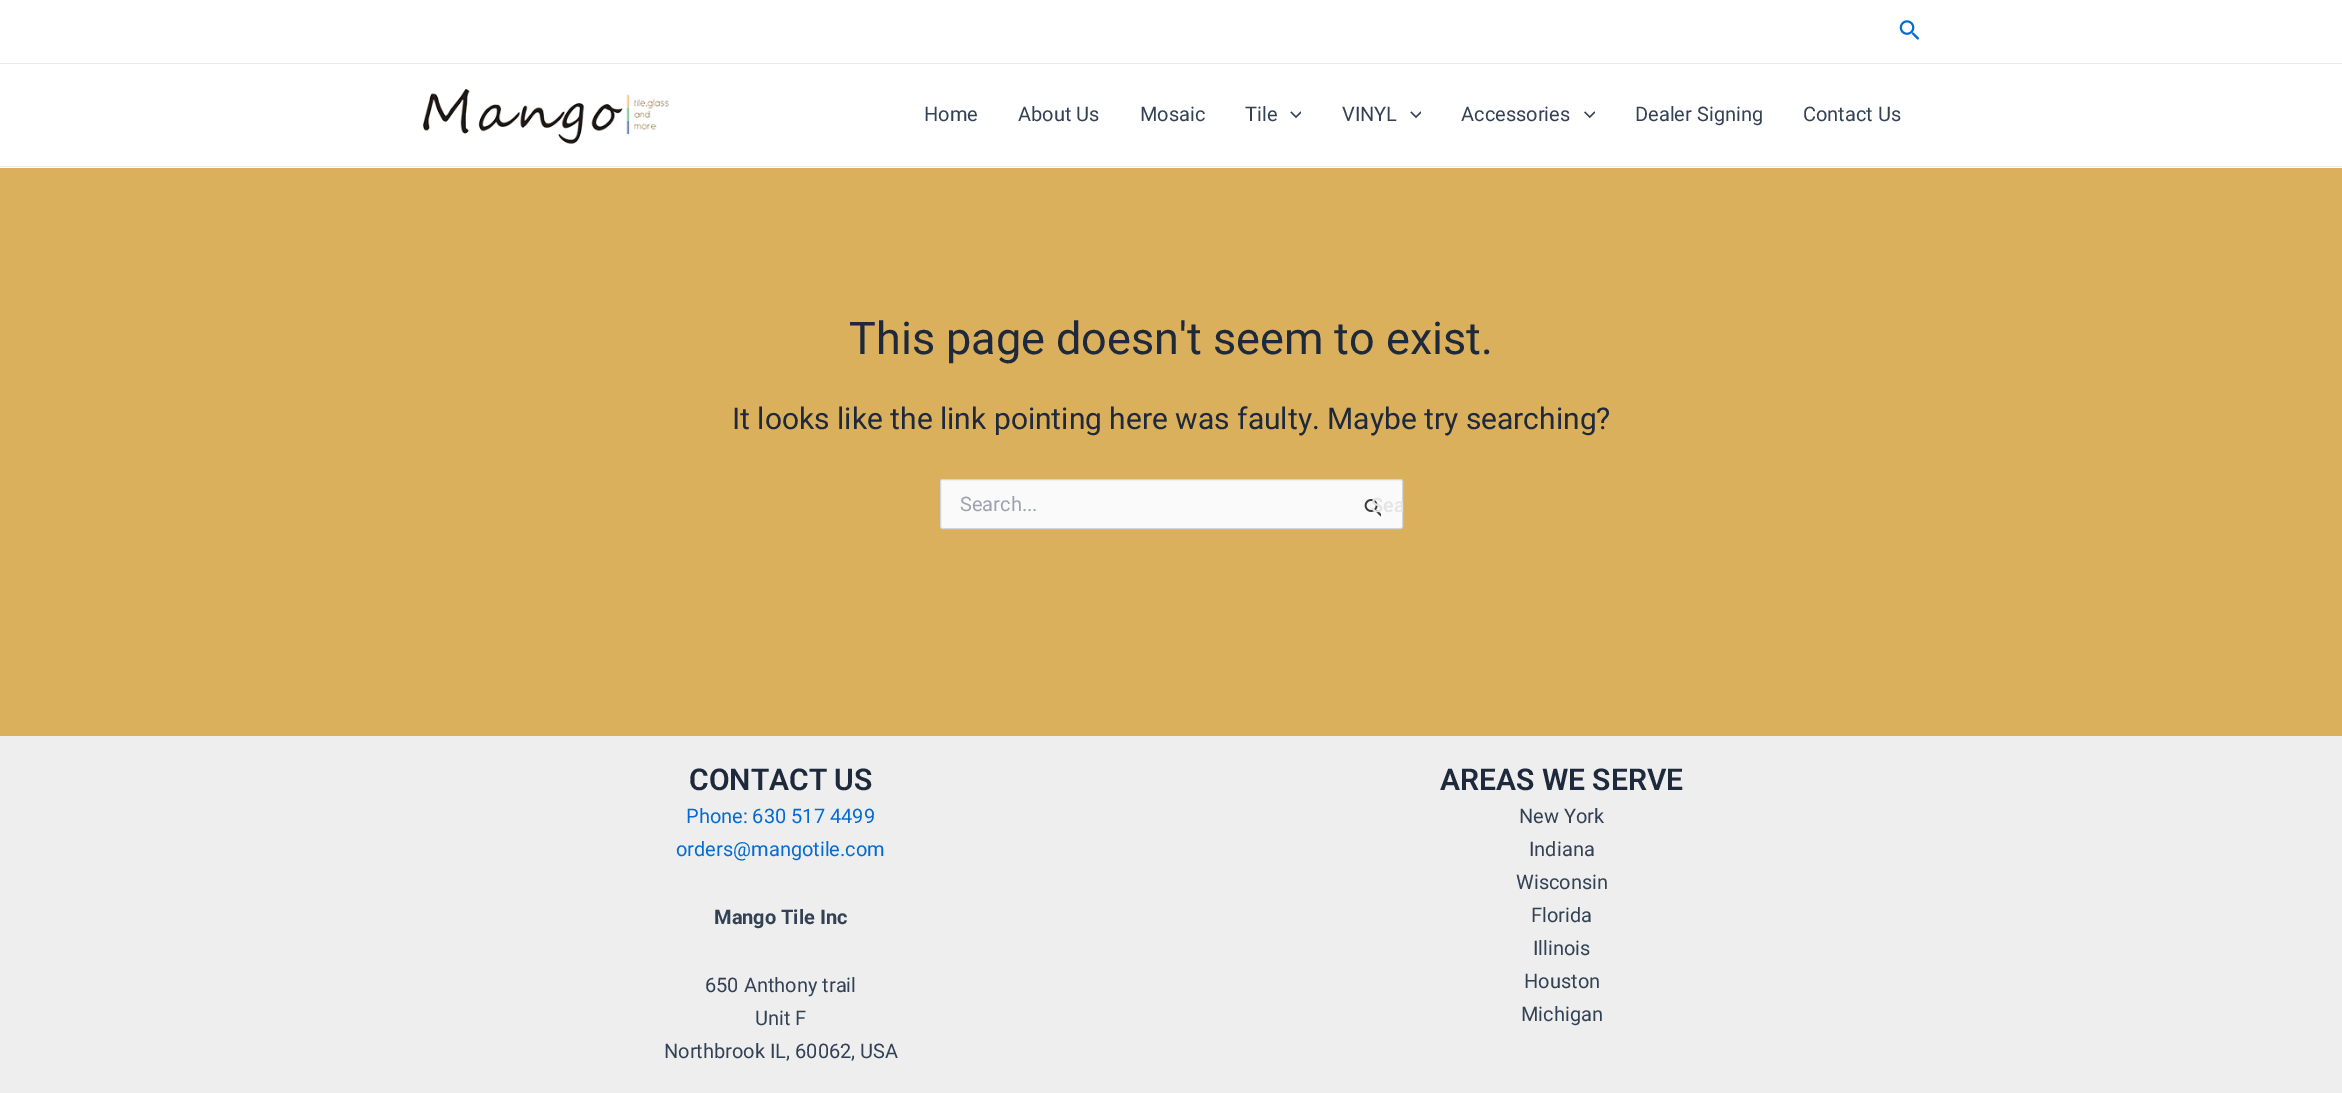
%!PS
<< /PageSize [2342 1093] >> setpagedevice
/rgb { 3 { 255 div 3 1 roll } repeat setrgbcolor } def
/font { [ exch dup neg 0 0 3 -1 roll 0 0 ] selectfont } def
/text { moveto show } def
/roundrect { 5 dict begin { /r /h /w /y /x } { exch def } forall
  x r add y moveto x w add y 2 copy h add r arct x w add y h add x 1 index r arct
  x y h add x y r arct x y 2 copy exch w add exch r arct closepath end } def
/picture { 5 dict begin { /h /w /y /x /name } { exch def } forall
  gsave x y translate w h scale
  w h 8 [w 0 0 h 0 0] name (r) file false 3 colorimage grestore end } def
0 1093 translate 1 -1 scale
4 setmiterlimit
218 176 92 rgb
0 0 2342 1093 rectfill
255 255 255 rgb
0 0 2342 63 rectfill
234 234 234 rgb
0 63 2342 1 rectfill
(img_01.rgb) 1899 20 20 20 picture
255 255 255 rgb
0 64 2342 104 rectfill
234 234 234 rgb
0 166 2342 1 rectfill
(img_02.rgb) 423 89 246 55 picture
(img_03.rgb) 1290 111 11 8 picture
(img_03.rgb) 1410 111 11 8 picture
(img_04.rgb) 1584 111 11 8 picture
250 250 250 rgb
940.5 479.5 462 49 2 roundrect gsave fill grestore
209 213 219 rgb
stroke
(img_05.rgb) 1364 499 17 18 picture
238 238 238 rgb
0 736 2342 357 rectfill
/Roboto-Regular 20 font
51 65 85 rgb
(Home) 924 121 text
(About Us) 1018 121 text
(Mosaic) 1140 121 text
(Tile) 1245 121 text
(VINYL) 1342 121 text
(Accessories) 1461 121 text
(Dealer Signing) 1635 121 text
(Contact Us) 1803 121 text
/Roboto-Regular 45 font
30 41 59 rgb
(This page doesn't seem to exist.) 849 354 text
/Roboto-Regular 30 font
(It looks like the link pointing here was faulty. Maybe try searching?) 732 429 text
/Roboto-Regular 20 font
156 163 175 rgb
(Search...) 960 511 text
gsave
1346 479 57 52 2.5 roundrect clip newpath
/Roboto-Medium 20 font
228 228 229 rgb
(Sea) 1371 512 text
grestore
/Roboto-SemiBold 30 font
30 41 59 rgb
(CONTACT US) 689 790 text
/Roboto-Regular 20 font
4 107 210 rgb
(Phone: 630 517 4499) 686 823 text
(orders@mangotile.com) 676 856 text
/Roboto-Bold 20 font
51 65 85 rgb
(Mango Tile Inc) 714 924 text
/Roboto-Regular 20 font
(650 Anthony trail) 705 992 text
(Unit F) 755 1025 text
(Northbrook IL, 60062, USA) 664 1058 text
/Roboto-SemiBold 30 font
30 41 59 rgb
(AREAS WE SERVE) 1440 790 text
/Roboto-Regular 20 font
51 65 85 rgb
(New York) 1519 823 text
(Indiana) 1529 856 text
(Wisconsin) 1516 889 text
(Florida) 1531 922 text
(Illinois) 1533 955 text
(Houston) 1524 988 text
(Michigan) 1521 1021 text
showpage
